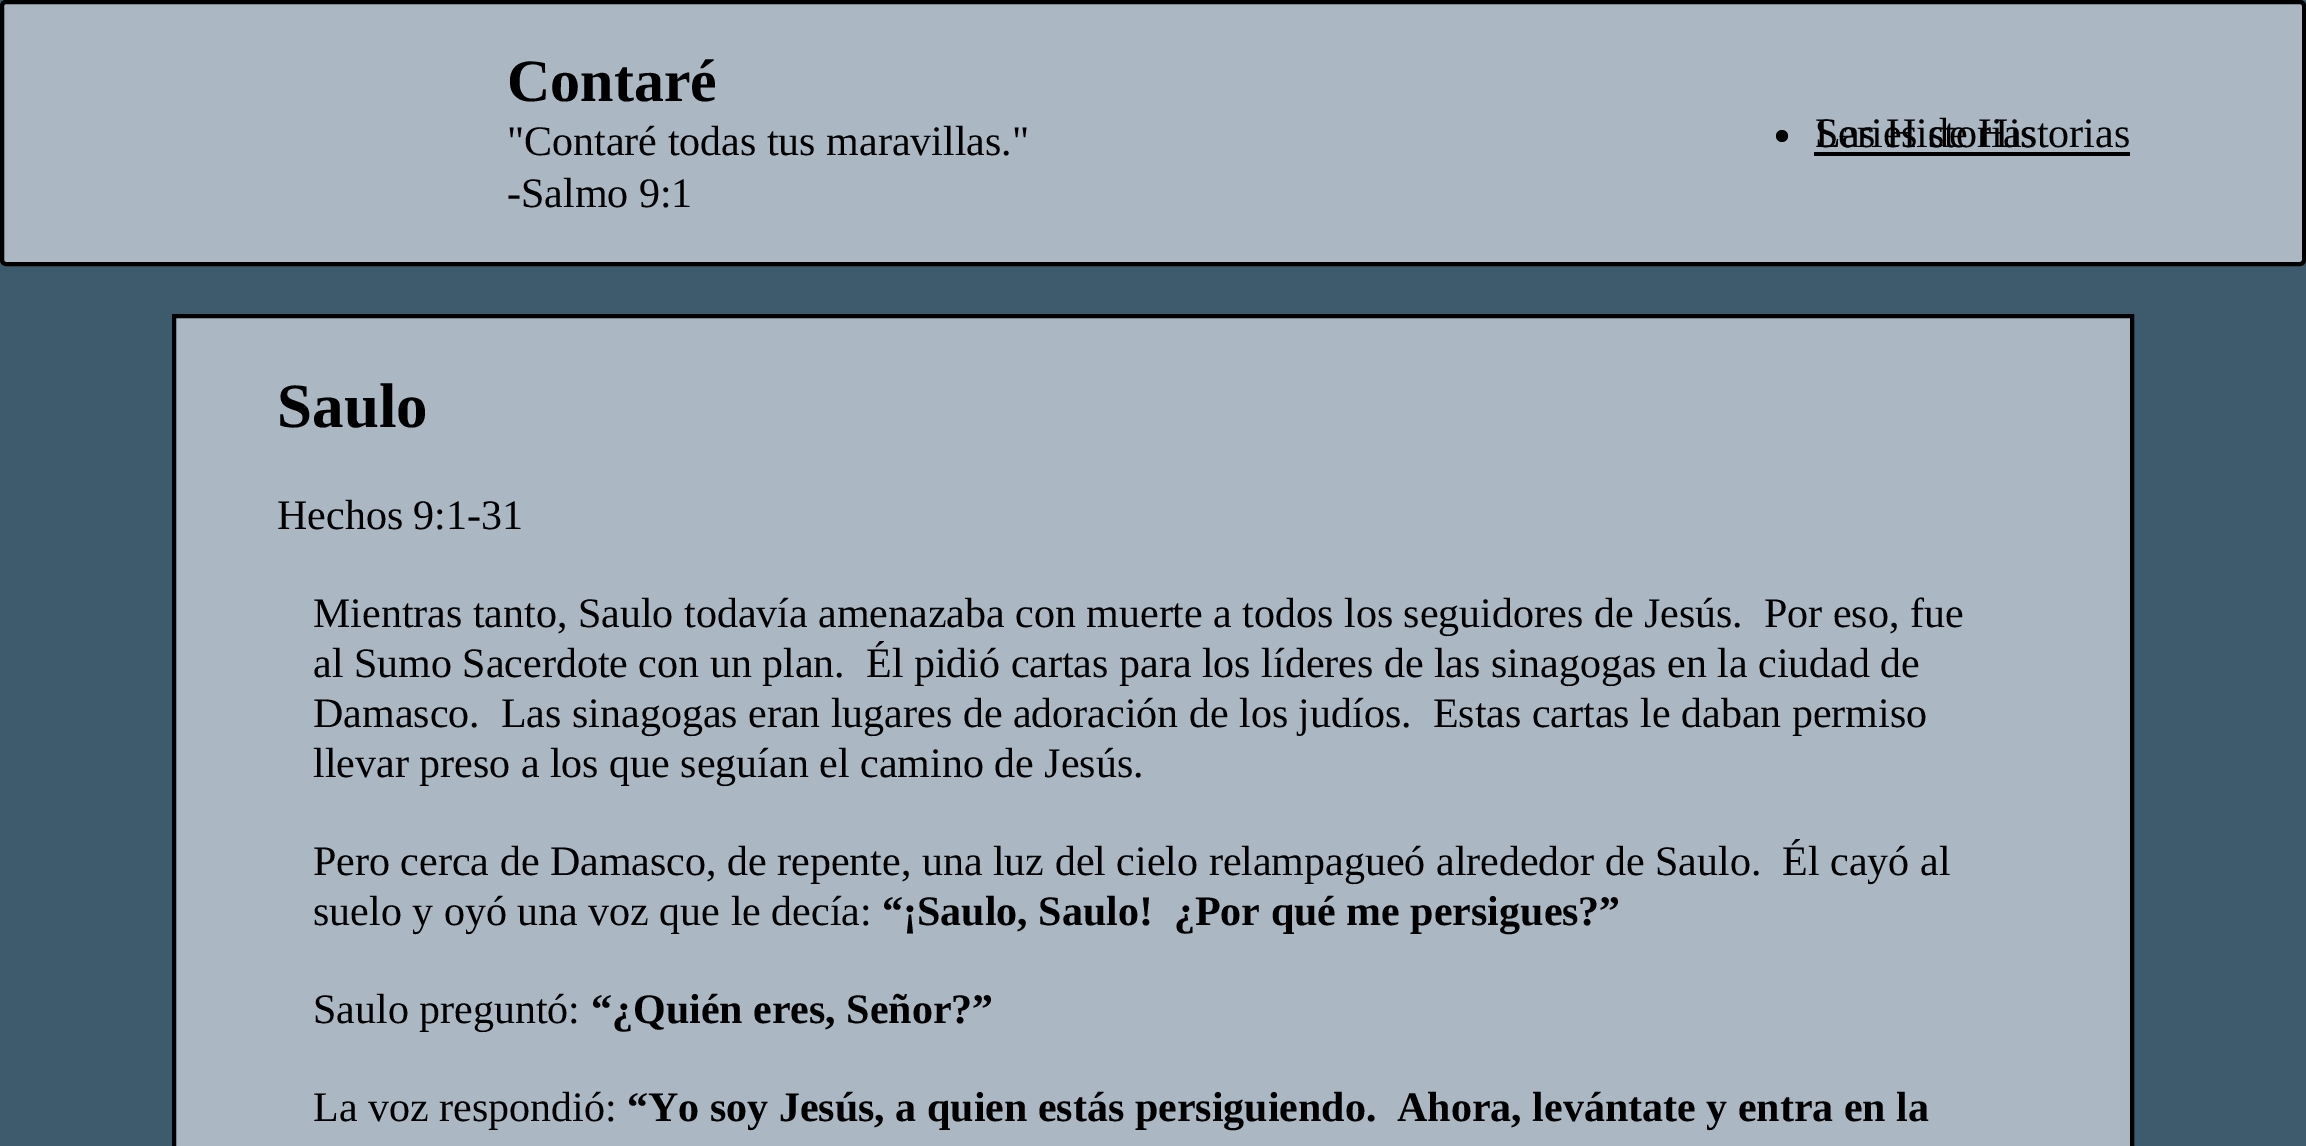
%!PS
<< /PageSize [2306 1146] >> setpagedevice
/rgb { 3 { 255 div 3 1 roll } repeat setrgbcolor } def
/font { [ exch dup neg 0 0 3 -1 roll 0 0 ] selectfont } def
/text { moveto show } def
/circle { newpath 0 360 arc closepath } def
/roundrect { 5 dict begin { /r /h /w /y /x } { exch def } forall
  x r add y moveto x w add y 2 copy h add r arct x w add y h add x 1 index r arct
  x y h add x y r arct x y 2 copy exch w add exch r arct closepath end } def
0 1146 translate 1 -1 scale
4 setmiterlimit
61 91 108 rgb
0 0 2306 1146 rectfill
171 184 195 rgb
2 2 2302 262 4 roundrect gsave fill grestore
0 0 0 rgb
4 setlinewidth
stroke
1814 152 316 4 rectfill
1782 136 6 circle fill
171 184 195 rgb
174 316 moveto 1958 0 rlineto 0 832 rlineto -1958 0 rlineto closepath gsave fill grestore
0 0 0 rgb
stroke
/LiberationSerif-Bold 60 font
(Contaré) 507 101 text
/LiberationSerif-Regular 42 font
("Contaré todas tus maravillas.") 507 155 text
(-Salmo 9:1) 507 207 text
(Las Historias) 1815 147 text
(Series de Historias) 1815 147 text
/LiberationSerif-Bold 63 font
(Saulo) 277 427 text
/LiberationSerif-Regular 42 font
(Hechos 9:1-31) 277 529 text
(Mientras tanto, Saulo todavía amenazaba con muerte a todos los seguidores de Jesús.  Por eso, fue) 313 627 text
(al Sumo Sacerdote con un plan.  Él pidió cartas para los líderes de las sinagogas en la ciudad de) 313 677 text
(Damasco.  Las sinagogas eran lugares de adoración de los judíos.  Estas cartas le daban permiso) 313 727 text
(llevar preso a los que seguían el camino de Jesús.) 313 777 text
(Pero cerca de Damasco, de repente, una luz del cielo relampagueó alrededor de Saulo.  Él cayó al) 313 875 text
(suelo y oyó una voz que le decía:) 313 925 text
/LiberationSerif-Bold 42 font
(“¡Saulo, Saulo!  ¿Por qué me persigues?”) 882 925 text
/LiberationSerif-Regular 42 font
(Saulo preguntó:) 313 1023 text
/LiberationSerif-Bold 42 font
(“¿Quién eres, Señor?”) 591 1023 text
/LiberationSerif-Regular 42 font
(La voz respondió:) 313 1121 text
/LiberationSerif-Bold 42 font
(“Yo soy Jesús, a quien estás persiguiendo.  Ahora, levántate y entra en la) 627 1121 text
showpage
